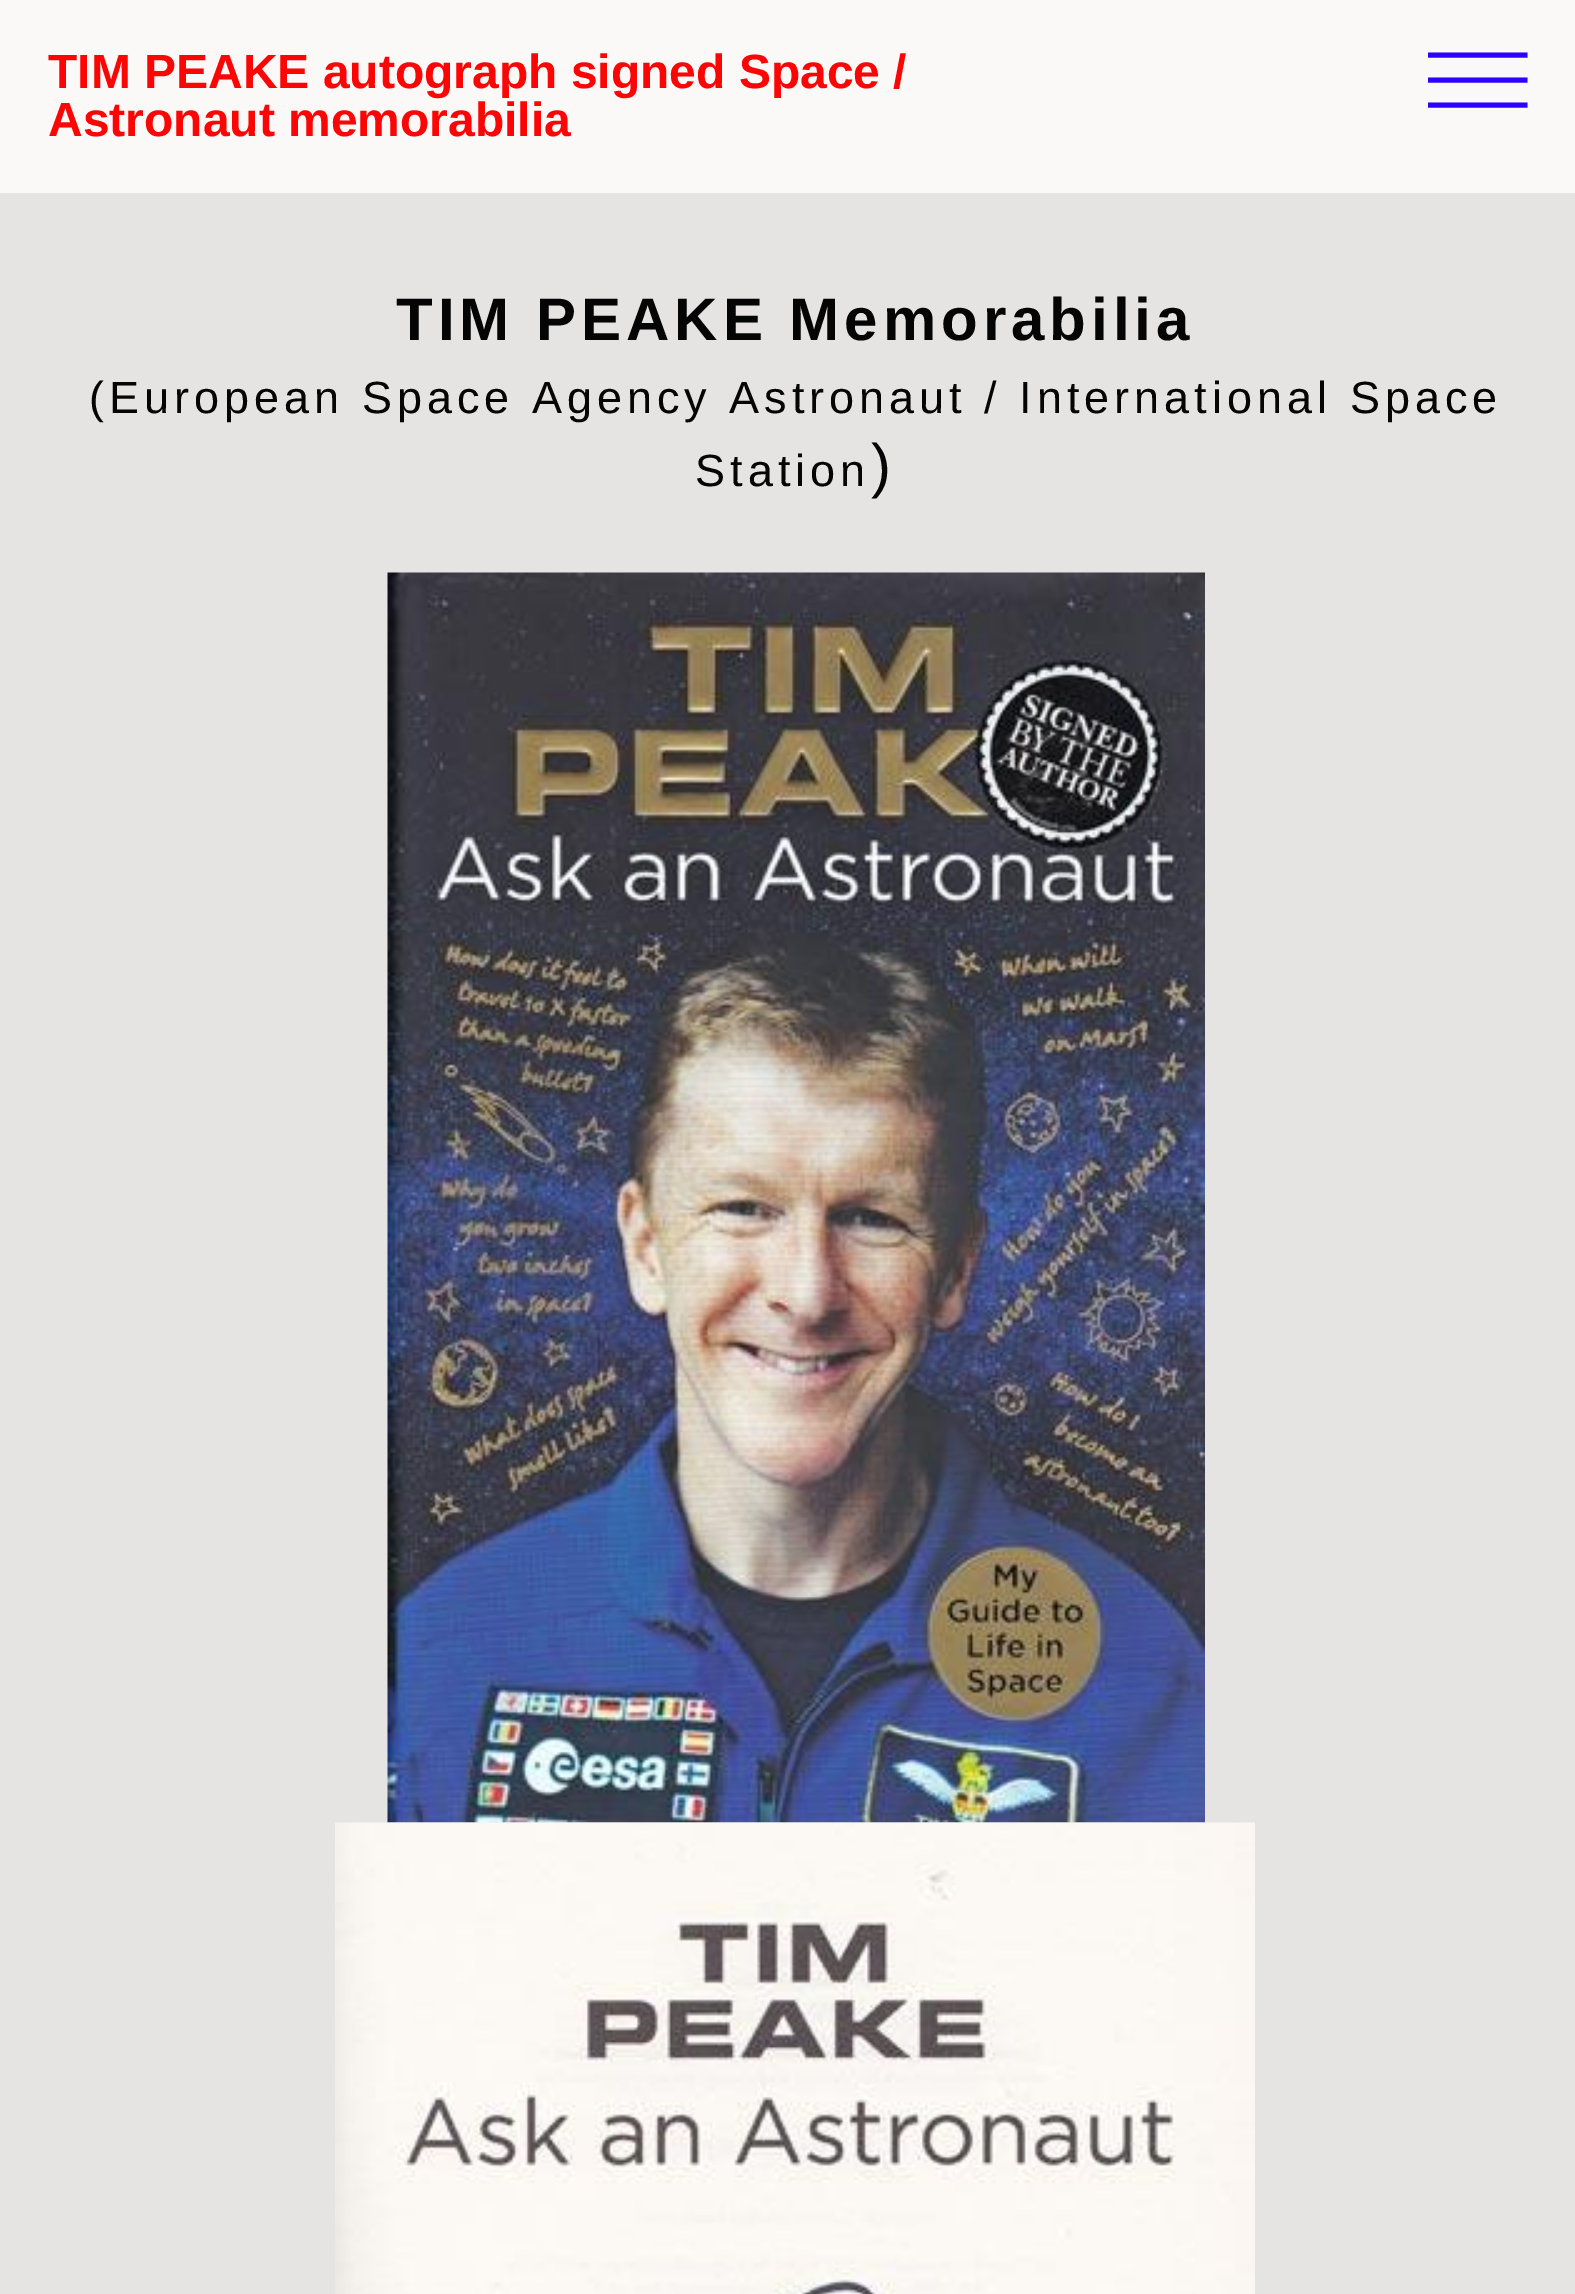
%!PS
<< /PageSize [1575 2294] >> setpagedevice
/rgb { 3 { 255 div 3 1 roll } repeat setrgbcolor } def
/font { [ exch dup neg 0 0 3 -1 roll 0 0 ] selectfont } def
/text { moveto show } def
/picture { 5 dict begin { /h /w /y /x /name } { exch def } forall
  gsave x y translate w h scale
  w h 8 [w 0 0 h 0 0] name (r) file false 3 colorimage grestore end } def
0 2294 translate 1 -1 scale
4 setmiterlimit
230 227 227 rgb
0 0 1575 2294 rectfill
251 248 248 rgb
0 0 1575 193 rectfill
gsave
1428 48 100 62 rectclip
45 3 255 rgb
5 setlinewidth
1427.5 55 moveto 100 0 rlineto stroke
1427.5 80 moveto 100 0 rlineto stroke
1427.5 105 moveto 100 0 rlineto stroke
grestore
(img_01.rgb) 387 572 818 1251 picture
(img_02.rgb) 335 1822 920 472 picture
/LiberationSans-Bold 48 font
252 5 5 rgb
(TIM PEAKE autograph signed Space /) 48 88 text
(Astronaut memorabilia) 48 136 text
/LiberationSans-Bold 60 font
5 5 5 rgb
396 340 moveto 5 0 (TIM PEAKE Memorabilia) ashow
/LiberationSans-Regular 45 font
89 413 moveto 5 0 (\(European Space Agency Astronaut / International Space) ashow
695 486 moveto 5 0 (Station) ashow
/LiberationSans-Regular 60 font
871 486 moveto 5 0 (\)) ashow
showpage
